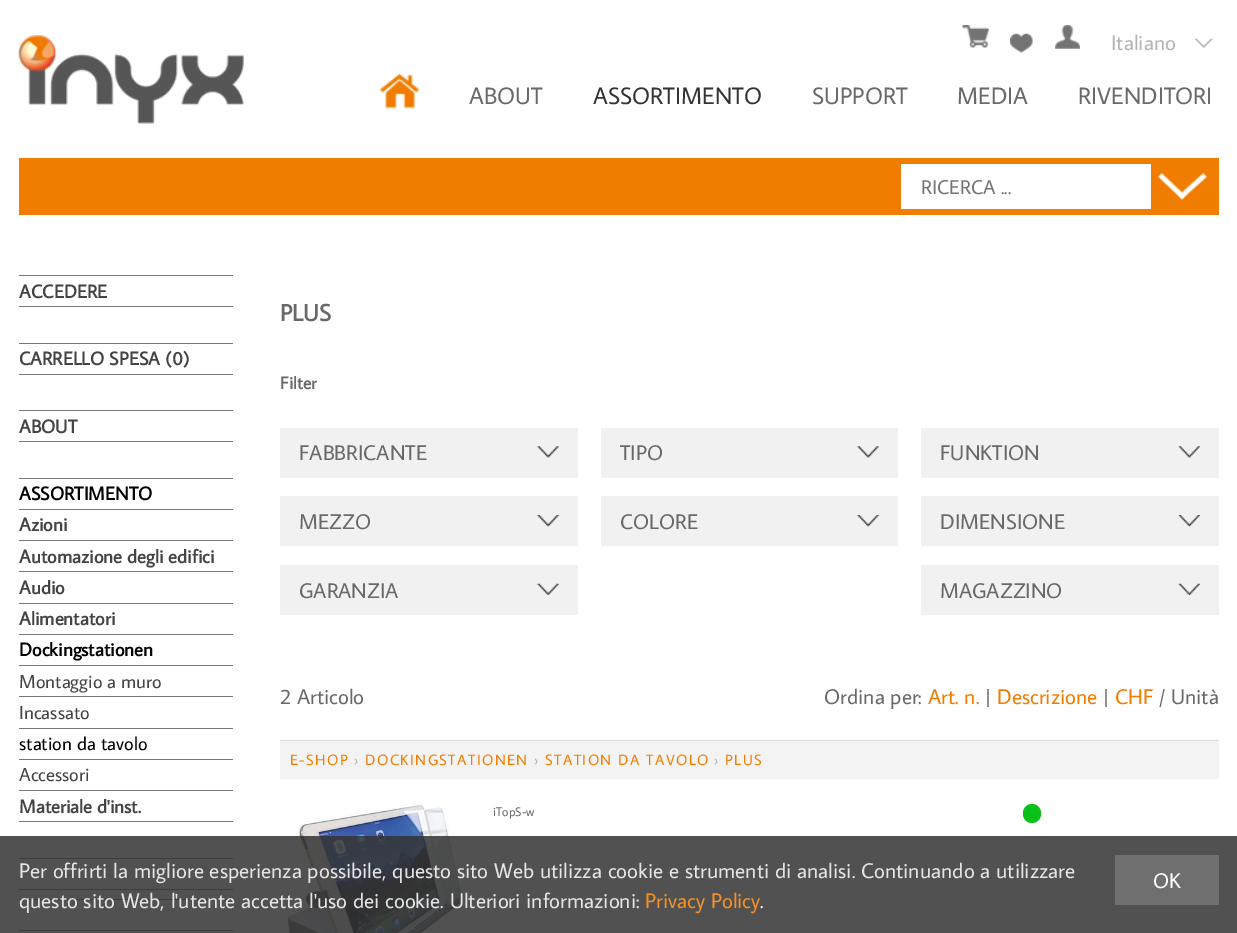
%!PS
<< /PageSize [1237 933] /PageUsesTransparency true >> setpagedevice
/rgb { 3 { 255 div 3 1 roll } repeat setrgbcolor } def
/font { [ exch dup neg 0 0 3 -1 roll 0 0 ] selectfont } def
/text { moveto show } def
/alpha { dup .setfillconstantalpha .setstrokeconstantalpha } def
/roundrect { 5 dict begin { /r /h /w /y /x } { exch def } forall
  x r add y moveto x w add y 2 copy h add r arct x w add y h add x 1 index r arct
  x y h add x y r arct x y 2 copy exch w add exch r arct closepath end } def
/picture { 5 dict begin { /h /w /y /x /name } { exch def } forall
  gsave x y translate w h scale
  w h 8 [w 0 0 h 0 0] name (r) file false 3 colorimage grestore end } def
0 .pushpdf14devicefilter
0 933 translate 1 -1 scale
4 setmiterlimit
255 255 255 rgb
0 0 1237 933 rectfill
(img_01.rgb) 18 35 226 89 picture
(img_02.rgb) 962 25 27 23 picture
(img_03.rgb) 1010 33 23 20 picture
(img_04.rgb) 1055 25 25 24 picture
(img_05.rgb) 1195 38 18 10 picture
(img_06.rgb) 380 73 40 36 picture
240 125 0 rgb
19 158 1200 57 rectfill
255 255 255 rgb
901 164 250 45 rectfill
(img_07.rgb) 1157 172 51 28 picture
119 119 119 rgb
19 275 214 1 rectfill
19 306 214 1 rectfill
19 343 214 1 rectfill
19 374 214 1 rectfill
19 410 214 1 rectfill
19 441 214 1 rectfill
19 478 214 1 rectfill
19 509 214 1 rectfill
19 540 214 1 rectfill
19 571 214 1 rectfill
19 603 214 1 rectfill
19 634 214 1 rectfill
19 665 214 1 rectfill
19 696 214 1 rectfill
19 728 214 1 rectfill
19 759 214 1 rectfill
19 790 214 1 rectfill
19 821 214 1 rectfill
19 858 214 1 rectfill
19 889 214 1 rectfill
19 899 214 1 rectfill
19 930 214 1 rectfill
241 241 241 rgb
280 428 298 50 rectfill
(img_08.rgb) 537 446 22 12 picture
601 428 297 50 rectfill
(img_09.rgb) 857 446 22 12 picture
921 428 298 50 rectfill
(img_10.rgb) 1178 446 22 12 picture
280 496 298 50 rectfill
(img_11.rgb) 537 515 22 12 picture
601 496 297 50 rectfill
(img_12.rgb) 857 515 22 12 picture
921 496 298 50 rectfill
(img_13.rgb) 1178 515 22 12 picture
280 565 298 50 rectfill
(img_14.rgb) 537 583 22 12 picture
921 565 298 50 rectfill
(img_15.rgb) 1178 583 22 12 picture
243 243 243 rgb
280 741 939 38 rectfill
219 219 219 rgb
280 740 939 1 rectfill
(img_16.rgb) 285 802 180 131 picture
10 192 27 rgb
1023 804 18 19 9 roundrect fill
0.85 alpha
51 51 51 rgb
0 836 1237 97 rectfill
1 alpha
111 111 111 rgb
1115 855 104 50 rectfill
/AverageSans-Regular 21.25 font
181 181 181 rgb
(Italiano) 1111 50 text
/AverageSans-Regular 23.75 font
105 104 106 rgb
(ABOUT) 469 104 text
51 51 51 rgb
(ASSORTIMENTO) 593 104 text
105 104 106 rgb
(SUPPORT) 812 104 text
(MEDIA) 957 104 text
(RIVENDITORI) 1078 104 text
/AverageSans-Regular 20 font
117 117 117 rgb
(RICERCA ...) 921 194 text
/AverageSans-Bold 18.75 font
68 68 68 rgb
(ACCEDERE) 19 298 text
(CARRELLO SPESA \(0\)) 19 365 text
(ABOUT) 19 433 text
0 0 0 rgb
(ASSORTIMENTO) 19 500 text
68 68 68 rgb
(Azioni) 19 531 text
(Automazione degli edifici) 19 563 text
(Audio) 19 594 text
(Alimentatori) 19 625 text
0 0 0 rgb
(Dockingstationen) 19 656 text
/AverageSans-Regular 18.75 font
68 68 68 rgb
(Montaggio a muro) 19 688 text
(Incassato) 19 719 text
0 0 0 rgb
(station da tavolo) 19 750 text
68 68 68 rgb
(Accessori) 19 781 text
/AverageSans-Bold 18.75 font
(Materiale d'inst.) 19 813 text
/AverageSans-Bold 23.75 font
105 104 106 rgb
(PLUS) 280 321 text
/AverageSans-Bold 17.5 font
(Filter) 280 389 text
/AverageSans-Regular 21.25 font
(FABBRICANTE) 299 460 text
(TIPO) 620 460 text
(FUNKTION) 940 460 text
(MEZZO) 299 529 text
(COLORE) 620 529 text
(DIMENSIONE) 940 529 text
(GARANZIA) 299 598 text
(MAGAZZINO) 940 598 text
(2 Articolo) 280 704 text
(Ordina per:) 824 704 text
240 125 0 rgb
(Art. n.) 928 704 text
105 104 106 rgb
(|) 985 704 text
240 125 0 rgb
(Descrizione) 997 704 text
105 104 106 rgb
(|) 1103 704 text
240 125 0 rgb
(CHF) 1115 704 text
105 104 106 rgb
(/ Unità) 1159 704 text
/AverageSans-Regular 15 font
240 125 0 rgb
290 765 moveto 1.4 0 (E-SHOP) ashow
170 170 170 rgb
354 765 moveto 1.4 0 (›) ashow
240 125 0 rgb
365 765 moveto 1.4 0 (DOCKINGSTATIONEN) ashow
170 170 170 rgb
534 765 moveto 1.4 0 (›) ashow
240 125 0 rgb
545 765 moveto 1.4 0 (STATION DA TAVOLO) ashow
170 170 170 rgb
714 765 moveto 1.4 0 (›) ashow
240 125 0 rgb
725 765 moveto 1.4 0 (PLUS) ashow
/AverageSans-Regular 12.5 font
105 104 106 rgb
(iTopS-w) 493 816 text
/AverageSans-Regular 21.25 font
228 228 229 rgb
(Per offrirti la migliore esperienza possibile, questo sito Web utilizza cookie e strumenti di analisi. Continuando a utilizzare) 19 878 text
255 255 255 rgb
(OK) 1153 888 text
228 228 229 rgb
(questo sito Web, l'utente accetta l'uso dei cookie. Ulteriori informazioni:) 19 908 text
242 145 38 rgb
(Privacy Policy) 645 908 text
255 255 255 rgb
(.) 760 908 text
.poppdf14devicefilter showpage
